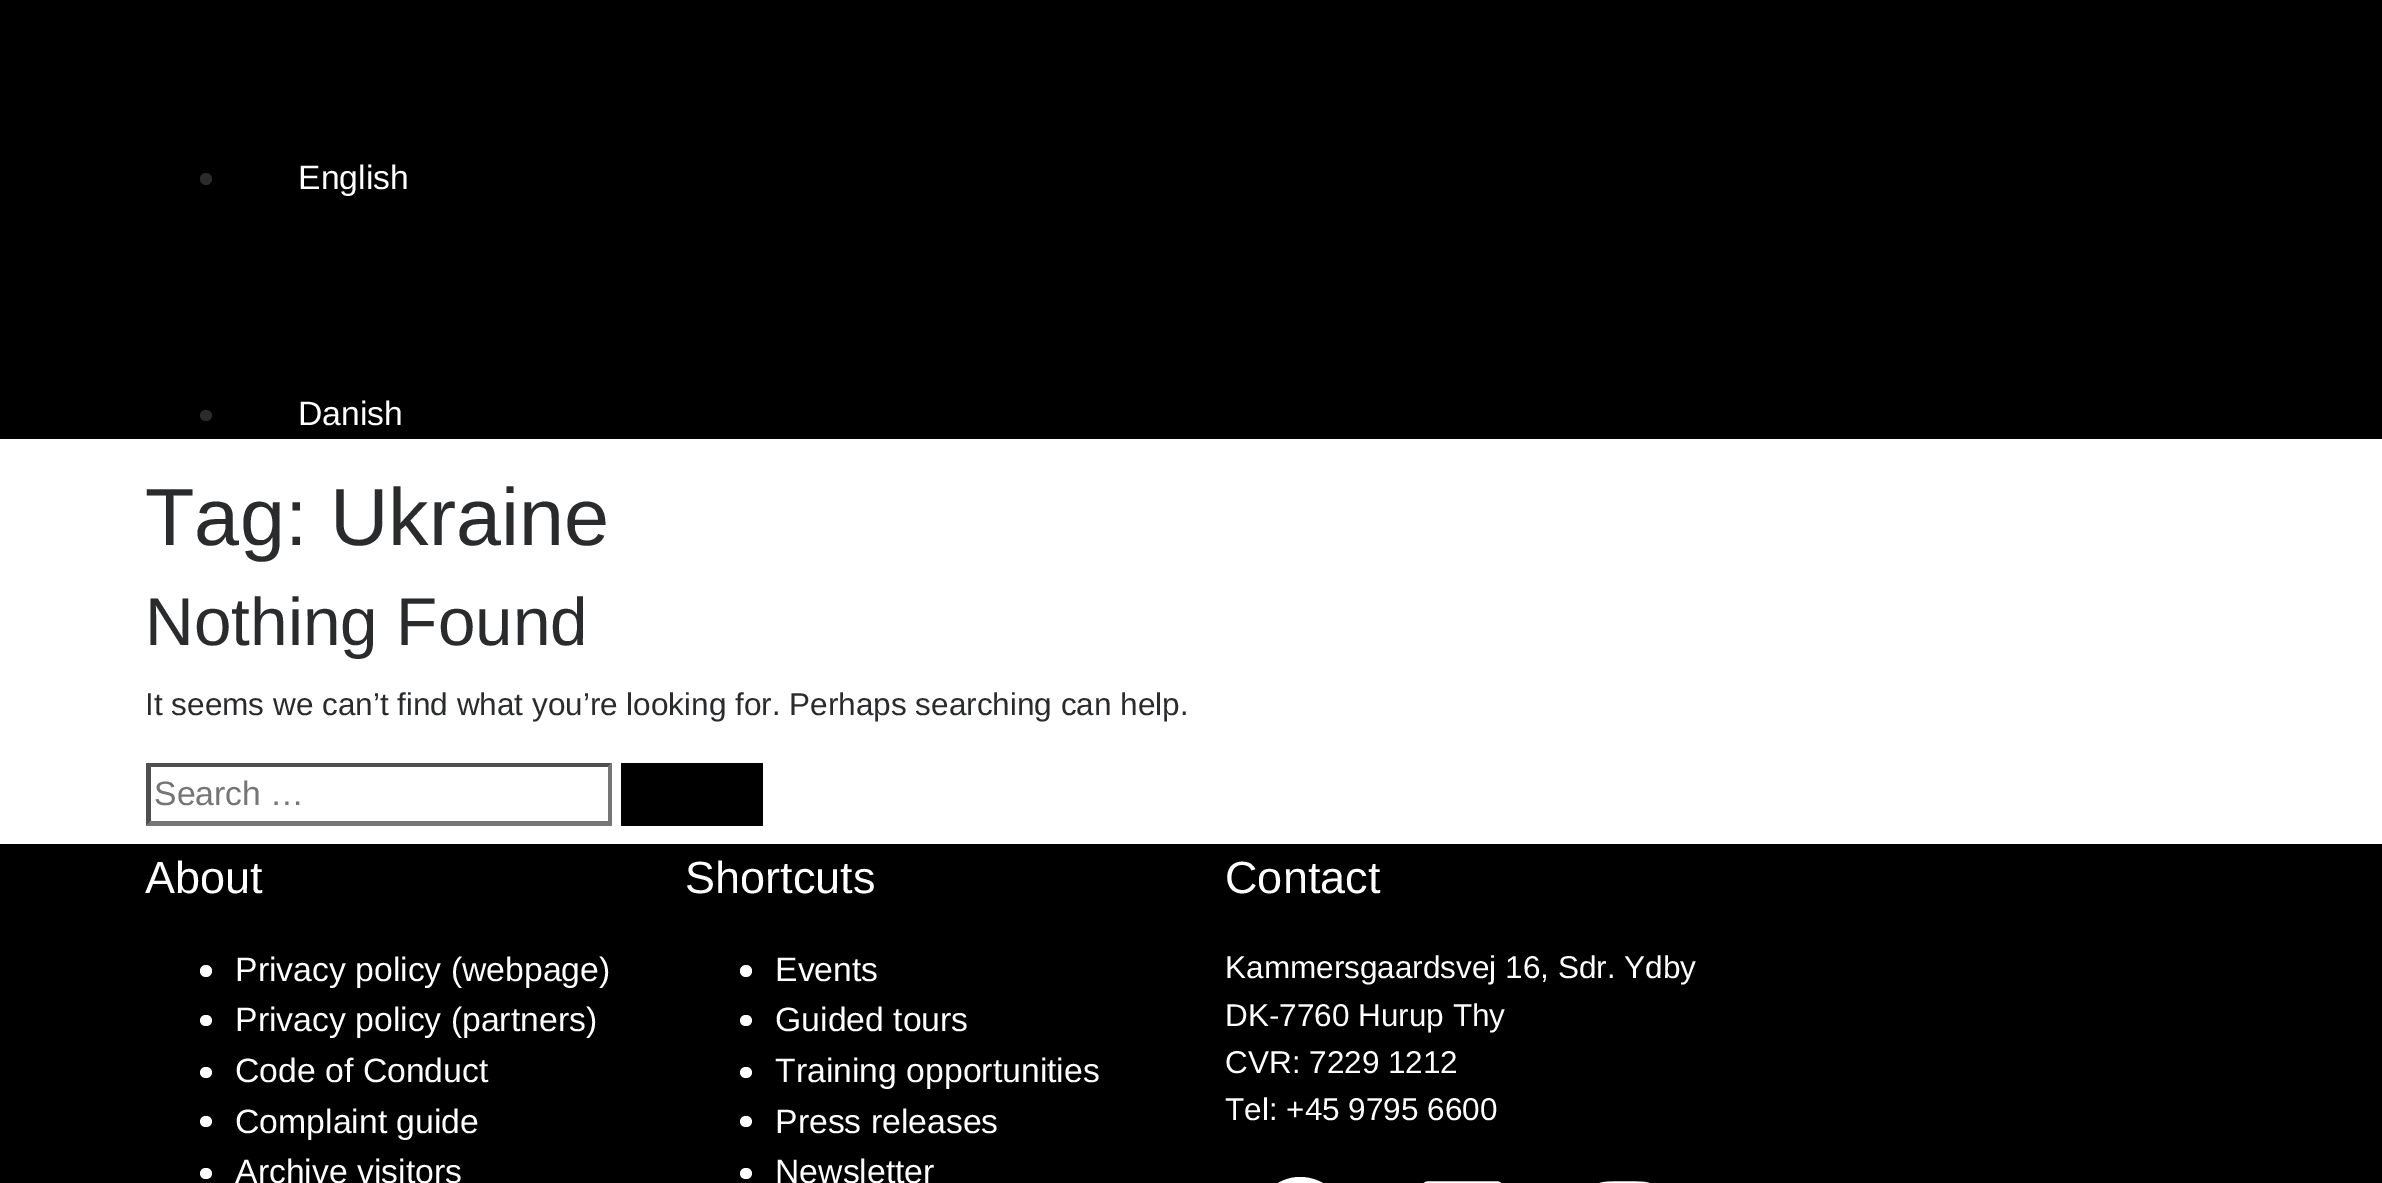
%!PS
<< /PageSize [2382 1183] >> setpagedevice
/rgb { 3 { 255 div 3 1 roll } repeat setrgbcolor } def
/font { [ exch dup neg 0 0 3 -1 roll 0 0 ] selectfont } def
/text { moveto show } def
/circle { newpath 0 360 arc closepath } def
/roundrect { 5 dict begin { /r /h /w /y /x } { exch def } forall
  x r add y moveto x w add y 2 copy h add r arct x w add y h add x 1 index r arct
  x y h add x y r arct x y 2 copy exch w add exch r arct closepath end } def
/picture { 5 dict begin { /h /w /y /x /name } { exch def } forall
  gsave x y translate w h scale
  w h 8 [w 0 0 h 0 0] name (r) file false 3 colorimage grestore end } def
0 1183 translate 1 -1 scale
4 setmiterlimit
255 255 255 rgb
0 0 2382 1183 rectfill
0 0 0 rgb
0 0 2382 439 rectfill
41 43 44 rgb
206 179 6 circle fill
200 410 12 11 5.5 roundrect fill
79 79 79 rgb
146 763 moveto 466 0 rlineto -4 4 rlineto -457 0 rlineto closepath fill
118 118 118 rgb
612 763 moveto 0 63 rlineto -4 -5 rlineto 0 -54 rlineto closepath fill
612 826 moveto -466 0 rlineto 5 -5 rlineto 457 0 rlineto closepath fill
79 79 79 rgb
146 826 moveto 0 -63 rlineto 5 4 rlineto 0 54 rlineto closepath fill
0 0 0 rgb
621 763 142 63 rectfill
0 844 2382 339 rectfill
255 255 255 rgb
206 971 6 circle fill
200 1015 12 11 5.5 roundrect fill
200 1067 12 11 5.5 roundrect fill
200 1116 12 11 5.5 roundrect fill
200 1168 12 11 5.5 roundrect fill
746 971 6 circle fill
740 1015 12 11 5.5 roundrect fill
740 1067 12 11 5.5 roundrect fill
740 1116 12 11 5.5 roundrect fill
740 1168 12 11 5.5 roundrect fill
1300 1177 moveto -24 0 -44 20 -44 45 rcurveto 0 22 16 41 37 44 rcurveto 0 -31 rlineto -11 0 rlineto 0 -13 rlineto 11 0 rlineto 1 -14 rlineto 2 -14 15 -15 26 -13 rcurveto 0 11 rlineto -14 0 -13 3 -13 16 rcurveto 13 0 rlineto -2 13 rlineto -10 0 rlineto 0 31 rlineto 21 -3 38 -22 38 -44 rcurveto 0 -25 -21 -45 -46 -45 rcurveto closepath fill
(img_01.rgb) 1423 1181 79 2 picture
(img_02.rgb) 1599 1181 51 2 picture
/LiberationSans-Regular 33.75 font
(English) 298 189 text
(Danish) 298 425 text
/LiberationSans-Regular 81 font
41 43 44 rgb
(Tag: Ukraine) 145 545 text
/LiberationSans-Regular 67.5 font
(Nothing Found) 145 645 text
/LiberationSans-Regular 31.5 font
(It seems we can’t find what you’re looking for. Perhaps searching can help.) 145 715 text
/LiberationSans-Regular 33.75 font
117 117 117 rgb
(Search …) 154 805 text
/LiberationSans-Regular 45 font
255 255 255 rgb
(About) 145 893 text
/LiberationSans-Regular 33.75 font
(Privacy policy \(webpage\)) 235 981 text
(Privacy policy \(partners\)) 235 1031 text
(Code of Conduct) 235 1082 text
(Complaint guide) 235 1133 text
(Archive visitors) 235 1183 text
/LiberationSans-Regular 45 font
(Shortcuts) 685 893 text
/LiberationSans-Regular 33.75 font
(Events) 775 981 text
(Guided tours) 775 1031 text
(Training opportunities) 775 1082 text
(Press releases) 775 1133 text
(Newsletter) 775 1183 text
/LiberationSans-Regular 45 font
(Contact) 1225 893 text
/LiberationSans-Regular 31.5 font
(Kammersgaardsvej 16, Sdr. Ydby) 1225 978 text
(DK-7760 Hurup Thy) 1225 1026 text
(CVR: 7229 1212) 1225 1073 text
(Tel: +45 9795 6600) 1225 1120 text
showpage
